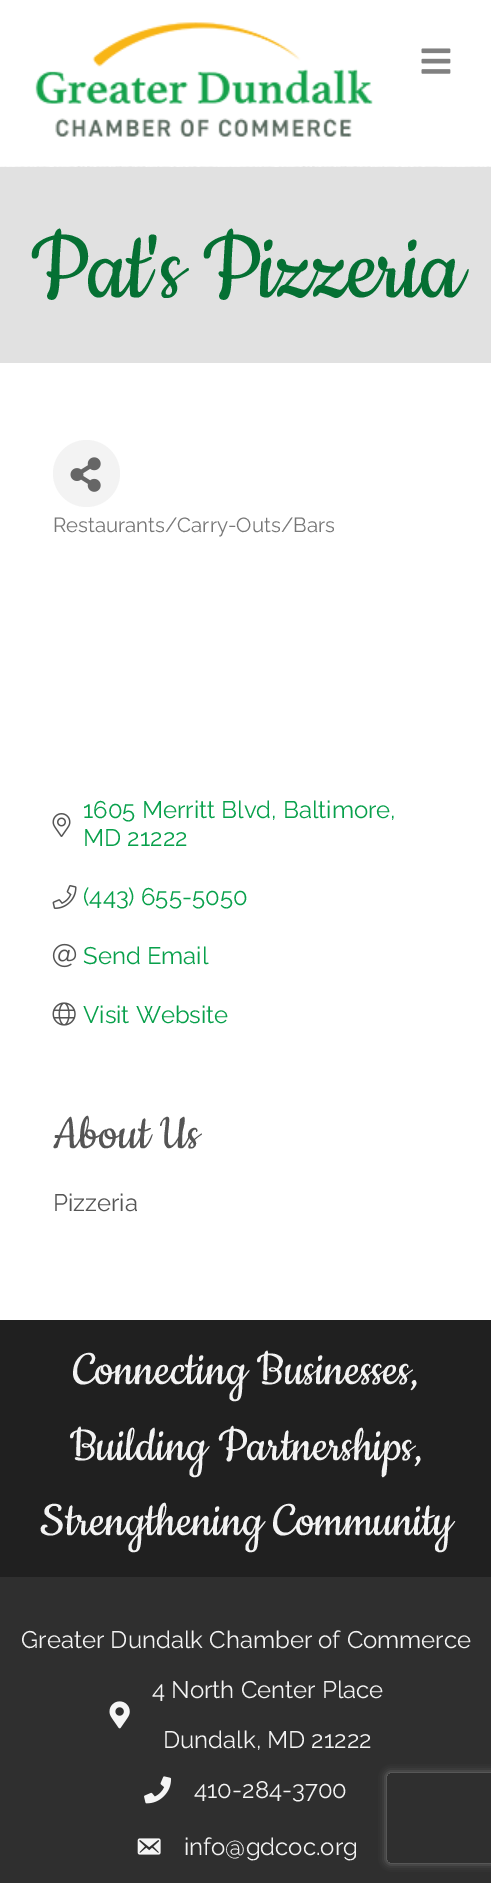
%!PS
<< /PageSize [491 1883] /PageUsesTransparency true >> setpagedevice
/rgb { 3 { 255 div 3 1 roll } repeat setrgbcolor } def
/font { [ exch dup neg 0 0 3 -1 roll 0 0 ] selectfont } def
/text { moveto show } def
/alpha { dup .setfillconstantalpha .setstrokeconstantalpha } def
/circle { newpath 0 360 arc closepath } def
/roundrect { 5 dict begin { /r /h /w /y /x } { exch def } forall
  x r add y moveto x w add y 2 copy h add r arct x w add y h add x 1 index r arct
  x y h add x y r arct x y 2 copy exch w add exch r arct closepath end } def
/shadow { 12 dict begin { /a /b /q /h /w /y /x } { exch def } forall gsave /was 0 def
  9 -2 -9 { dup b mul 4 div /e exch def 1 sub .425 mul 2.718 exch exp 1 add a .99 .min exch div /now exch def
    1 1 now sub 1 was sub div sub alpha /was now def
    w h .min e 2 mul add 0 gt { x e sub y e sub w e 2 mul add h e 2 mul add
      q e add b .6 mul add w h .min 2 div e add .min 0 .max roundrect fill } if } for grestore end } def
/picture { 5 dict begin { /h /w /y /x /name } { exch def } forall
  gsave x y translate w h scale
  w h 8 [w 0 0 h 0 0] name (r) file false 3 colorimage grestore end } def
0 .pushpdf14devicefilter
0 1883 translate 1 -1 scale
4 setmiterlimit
255 255 255 rgb
0 0 491 1883 rectfill
(img_01.rgb) 35 22 338 115 picture
(img_02.rgb) 421 48 30 26 picture
(img_03.rgb) 0 166 491 1 picture
225 225 225 rgb
0 167 491 196 rectfill
243 243 243 rgb
86.5 473.5 33.5 circle fill
(img_04.rgb) 70 457 31 35 picture
(img_05.rgb) 52 813 19 24 picture
(img_06.rgb) 52 885 25 24 picture
(img_07.rgb) 52 943 25 25 picture
(img_08.rgb) 52 1002 24 24 picture
32 32 32 rgb
0 1320 491 257 rectfill
47 47 47 rgb
0 1577 491 306 rectfill
(img_09.rgb) 109 1701 21 28 picture
(img_10.rgb) 144 1776 28 28 picture
(img_11.rgb) 137 1838 24 17 picture
gsave
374 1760 moveto 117 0 rlineto 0 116 rlineto -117 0 rlineto closepath 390 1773 moveto 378 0 rlineto 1.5 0 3 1.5 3 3 rcurveto 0 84 rlineto 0 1.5 -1.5 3 -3 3 rcurveto -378 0 rlineto -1.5 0 -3 -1.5 -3 -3 rcurveto 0 -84 rlineto 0 -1.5 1.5 -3 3 -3 rcurveto closepath eoclip newpath
128 128 128 rgb
387 1773 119 90 3 4 1 shadow
grestore
/Cookie-Regular 108 font
5 112 51 rgb
30 297 moveto -1.5 0 (Pat's Pizzeria) ashow
/Raleway-Regular 20.4 font
119 119 119 rgb
(Restaurants/Carry-Outs/Bars) 53 532 text
/Raleway-Regular 24 font
8 160 75 rgb
(1605 Merritt Blvd, Baltimore,) 83 818 text
(MD 21222) 83 846 text
(\(443\) 655-5050) 83 905 text
(Send Email) 83 964 text
(Visit Website) 83 1023 text
/Cookie-Regular 54 font
85 85 85 rgb
(About Us) 53 1148 text
/Raleway-Regular 24 font
(Pizzeria) 53 1211 text
/Cookie-Regular 54 font
243 243 243 rgb
(Connecting Businesses,) 73 1384 text
(Building Partnerships,) 70 1460 text
(Strengthening Community) 40 1535 text
/Raleway-Regular 24 font
(Greater Dundalk Chamber of Commerce) 21 1648 text
(4 North Center Place) 152 1698 text
(Dundalk, MD 21222) 163 1748 text
(410-284-3700) 194 1798 text
(info@gdcoc.org) 184 1855 text
.poppdf14devicefilter showpage
